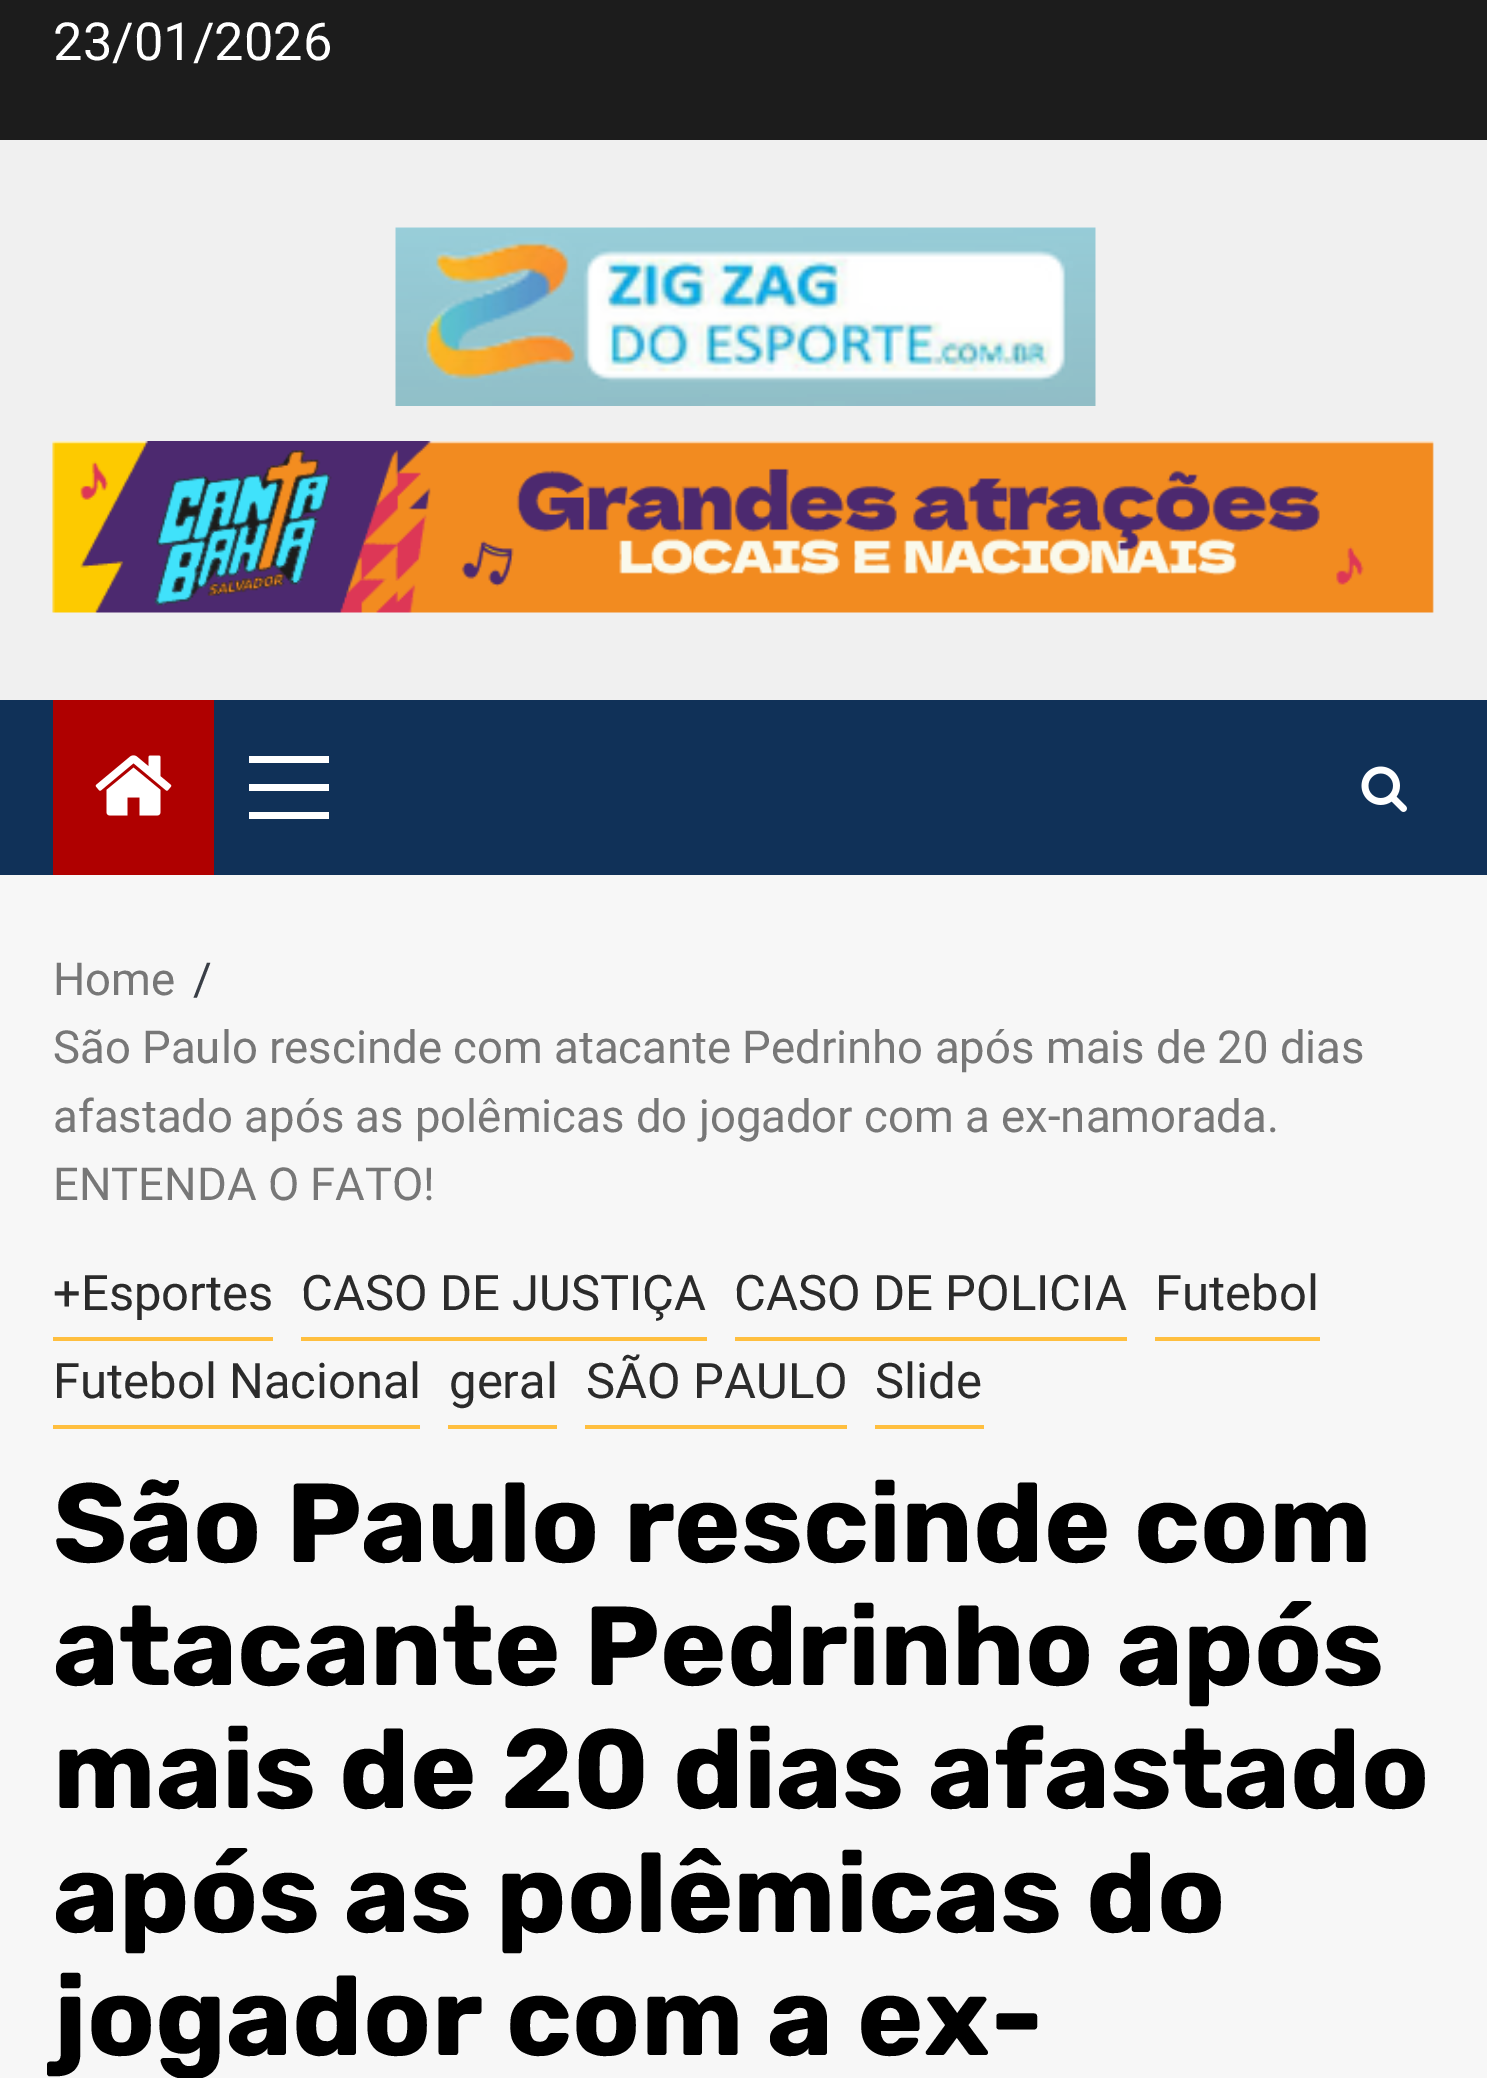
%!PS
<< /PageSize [1487 2078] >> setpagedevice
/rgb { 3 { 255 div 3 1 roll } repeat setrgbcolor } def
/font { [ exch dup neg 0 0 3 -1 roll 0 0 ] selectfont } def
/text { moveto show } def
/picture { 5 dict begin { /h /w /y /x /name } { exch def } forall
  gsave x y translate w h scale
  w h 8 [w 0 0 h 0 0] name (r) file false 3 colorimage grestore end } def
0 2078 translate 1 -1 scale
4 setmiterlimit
247 247 247 rgb
0 0 1487 2078 rectfill
240 240 240 rgb
0 140 1487 560 rectfill
28 28 28 rgb
0 0 1487 140 rectfill
(img_01.rgb) 395 227 701 179 picture
(img_02.rgb) 52 441 1382 172 picture
16 49 88 rgb
0 700 1487 175 rectfill
175 0 0 rgb
53 700 161 175 rectfill
(img_03.rgb) 95 755 77 61 picture
255 255 255 rgb
249 784 80 7 rectfill
249 756 80 7 rectfill
249 812 80 7 rectfill
(img_04.rgb) 1361 766 46 46 picture
255 191 63 rgb
53 1337 220 4 rectfill
301 1337 406 4 rectfill
735 1337 392 4 rectfill
1155 1337 165 4 rectfill
53 1425 367 4 rectfill
448 1425 109 4 rectfill
585 1425 262 4 rectfill
875 1425 109 4 rectfill
/Roboto-Regular 52.5 font
255 255 255 rgb
(23/01/2026) 53 60 text
/Roboto-Regular 45.5 font
119 119 119 rgb
(Home) 53 995 text
57 62 70 rgb
(/) 193 995 text
119 119 119 rgb
(São Paulo rescinde com atacante Pedrinho após mais de 20 dias) 53 1063 text
(afastado após as polêmicas do jogador com a ex-namorada.) 53 1132 text
(ENTENDA O FATO!) 53 1200 text
/Roboto-Regular 49 font
43 43 43 rgb
(+Esportes) 53 1310 text
(CASO DE JUSTIÇA) 301 1310 text
(CASO DE POLICIA) 734 1310 text
(Futebol) 1155 1310 text
(Futebol Nacional) 53 1398 text
(geral) 449 1398 text
(SÃO PAULO) 586 1398 text
(Slide) 875 1398 text
/Rubik-Bold 112 font
0 0 0 rgb
(São Paulo rescinde com) 53 1562 text
(atacante Pedrinho após) 53 1685 text
(mais de 20 dias afastado) 53 1808 text
(após as polêmicas do) 53 1932 text
(jogador com a ex-) 53 2055 text
showpage
